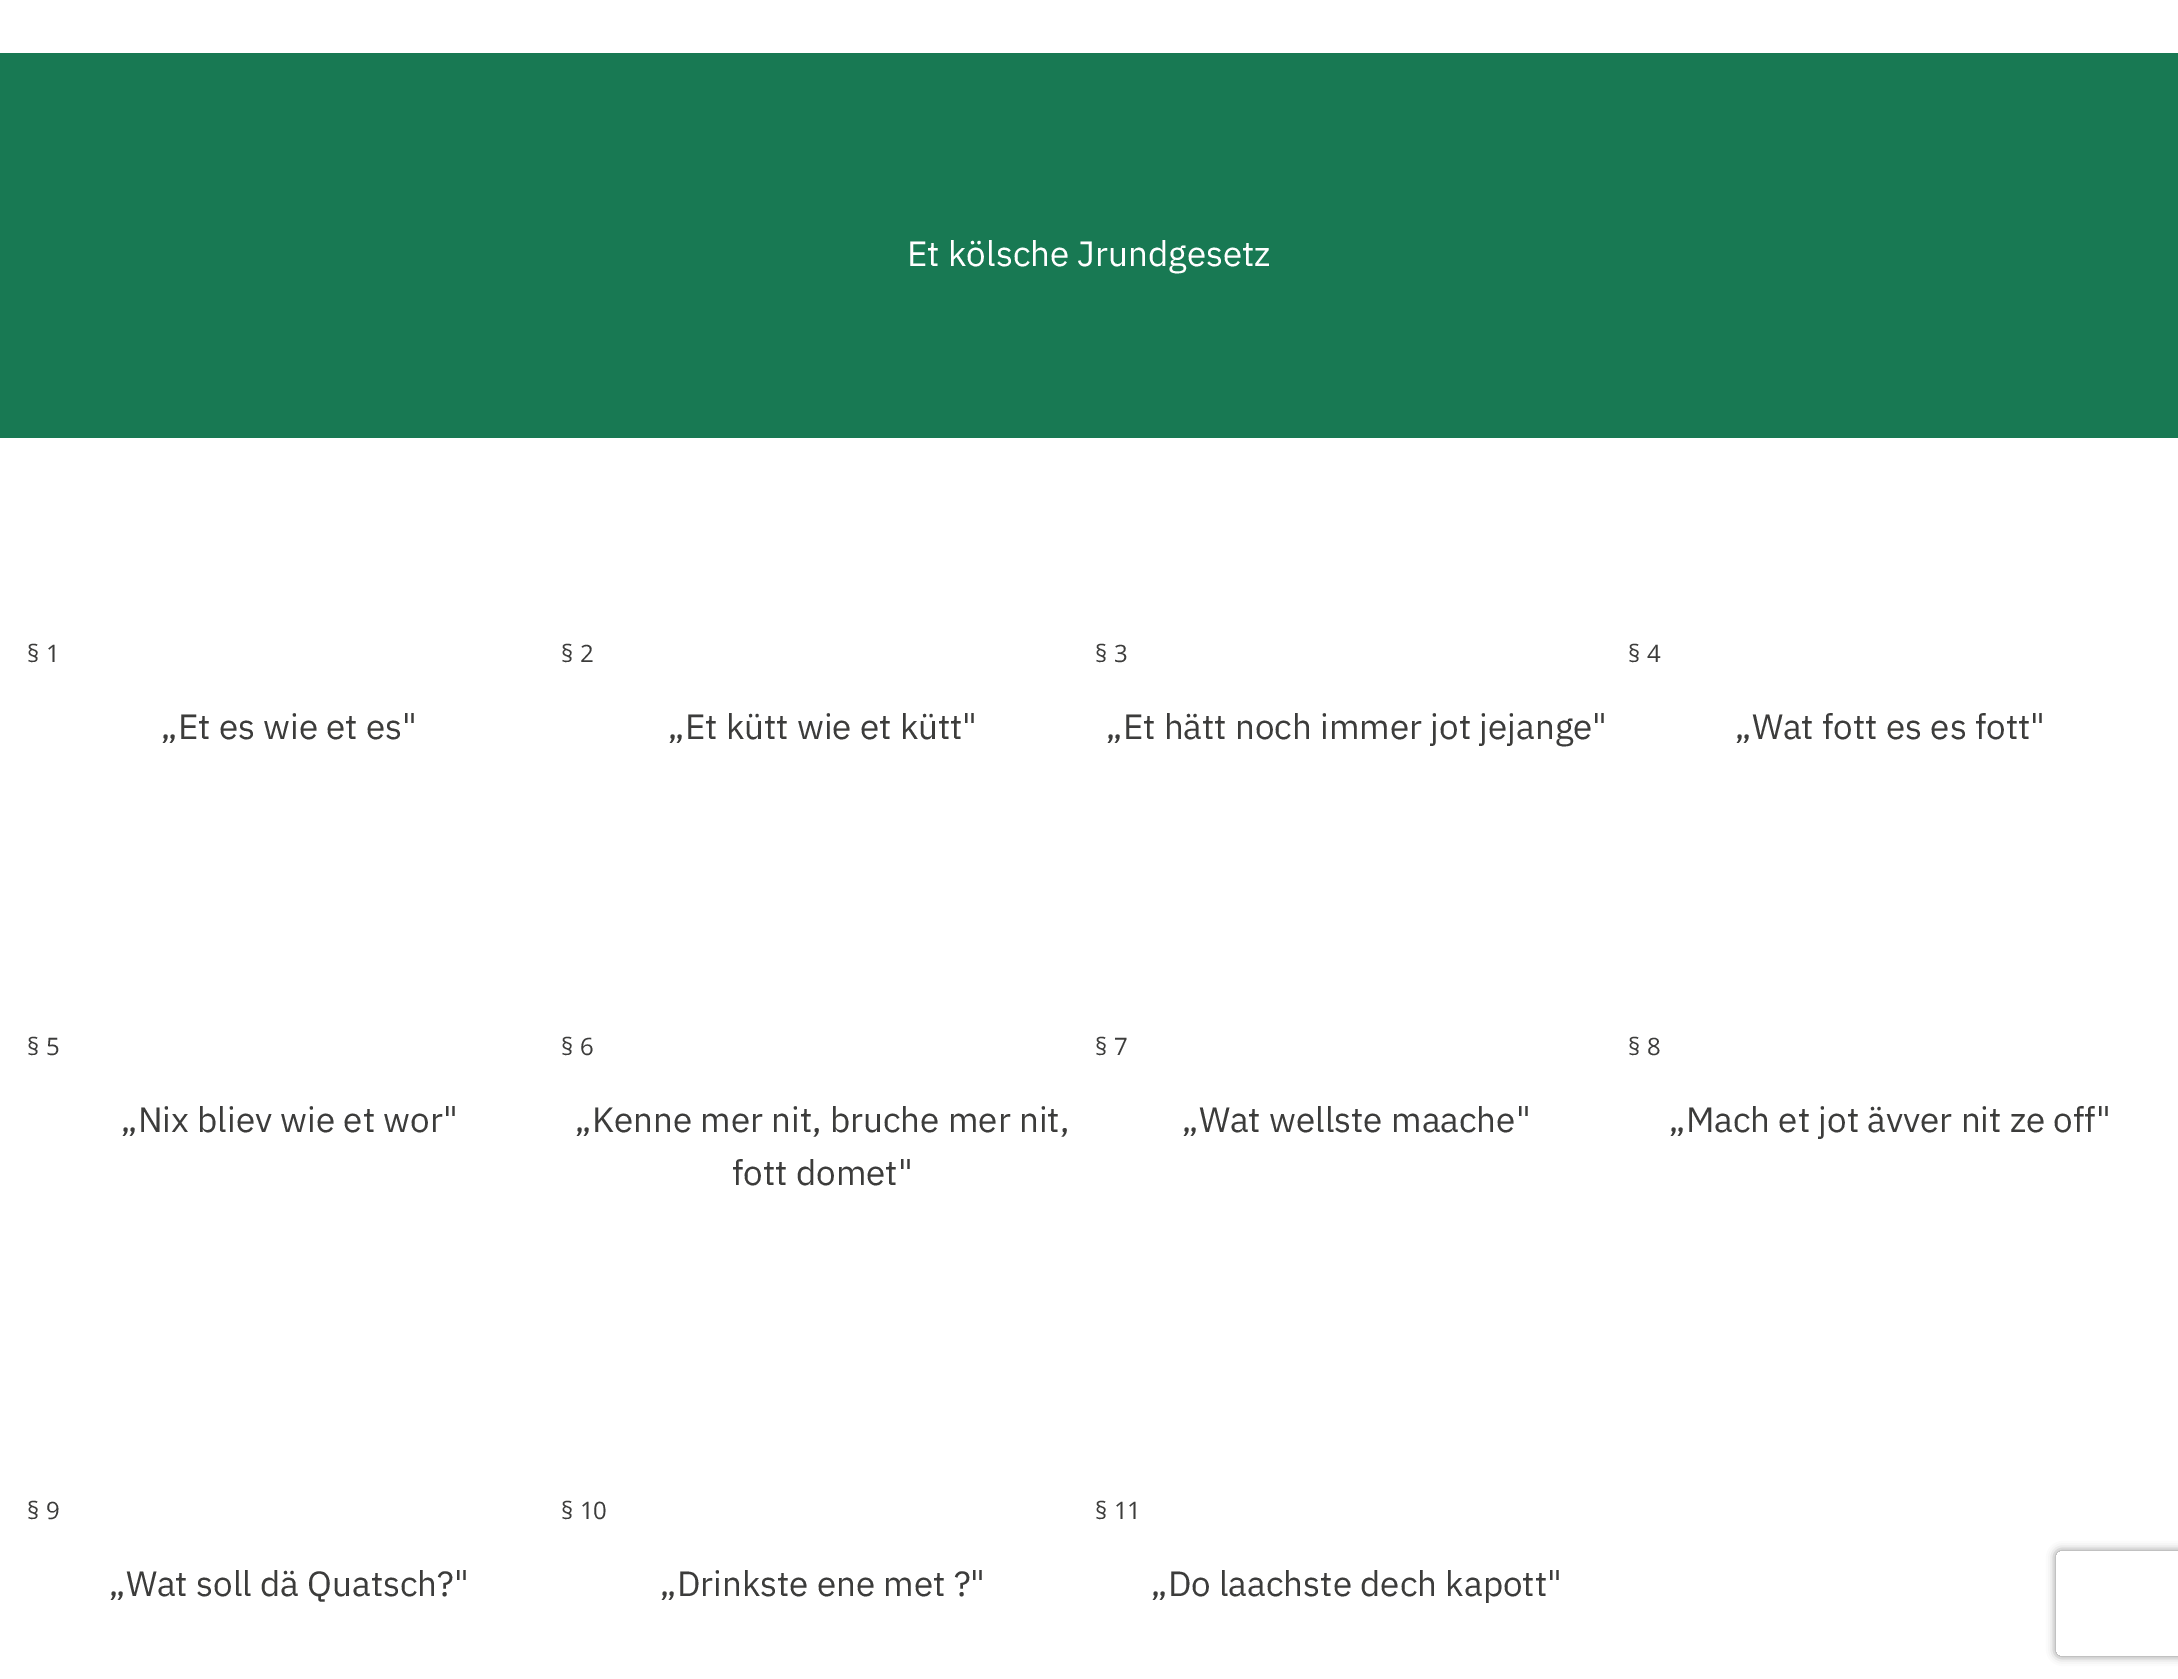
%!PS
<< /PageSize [2178 1679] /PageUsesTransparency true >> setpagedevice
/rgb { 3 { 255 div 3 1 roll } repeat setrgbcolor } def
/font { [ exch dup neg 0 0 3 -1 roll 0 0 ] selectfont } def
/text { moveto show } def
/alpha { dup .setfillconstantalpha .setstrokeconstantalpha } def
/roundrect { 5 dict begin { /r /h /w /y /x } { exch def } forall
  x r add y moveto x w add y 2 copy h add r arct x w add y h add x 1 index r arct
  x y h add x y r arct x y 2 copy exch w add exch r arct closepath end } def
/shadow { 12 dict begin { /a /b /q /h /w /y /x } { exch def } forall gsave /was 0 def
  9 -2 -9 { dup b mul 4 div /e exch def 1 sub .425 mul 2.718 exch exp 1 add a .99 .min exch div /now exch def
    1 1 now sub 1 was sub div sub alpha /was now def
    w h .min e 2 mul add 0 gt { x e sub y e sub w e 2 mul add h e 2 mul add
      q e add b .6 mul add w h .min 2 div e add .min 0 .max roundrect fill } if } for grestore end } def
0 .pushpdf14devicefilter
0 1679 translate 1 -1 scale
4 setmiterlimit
255 255 255 rgb
0 0 2178 1679 rectfill
24 121 83 rgb
0 53 2178 385 rectfill
gsave
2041 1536 moveto 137 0 rlineto 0 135 rlineto -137 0 rlineto closepath 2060 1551 moveto 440 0 rlineto 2 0 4 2 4 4 rcurveto 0 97 rlineto 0 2 -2 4 -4 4 rcurveto -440 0 rlineto -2 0 -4 -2 -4 -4 rcurveto 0 -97 rlineto 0 -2 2 -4 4 -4 rcurveto closepath eoclip newpath
128 128 128 rgb
2056 1551 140 105 4 4.5 1 shadow
grestore
/IBMPlexSans-Regular 35 font
255 255 255 rgb
(Et kölsche Jrundgesetz) 907 266 text
/OpenSans-Regular 24 font
60 60 59 rgb
(§ 1) 27 662 text
/IBMPlexSans-Regular 35 font
(„Et es wie et es") 161 739 text
/OpenSans-Regular 24 font
(§ 2) 561 662 text
/IBMPlexSans-Regular 35 font
(„Et kütt wie et kütt") 668 739 text
/OpenSans-Regular 24 font
(§ 3) 1095 662 text
/IBMPlexSans-Regular 35 font
(„Et hätt noch immer jot jejange") 1106 739 text
/OpenSans-Regular 24 font
(§ 4) 1628 662 text
/IBMPlexSans-Regular 35 font
(„Wat fott es es fott") 1735 739 text
/OpenSans-Regular 24 font
(§ 5) 27 1055 text
/IBMPlexSans-Regular 35 font
(„Nix bliev wie et wor") 121 1132 text
/OpenSans-Regular 24 font
(§ 6) 561 1055 text
/IBMPlexSans-Regular 35 font
(„Kenne mer nit, bruche mer nit,) 575 1132 text
(fott domet") 732 1185 text
/OpenSans-Regular 24 font
(§ 7) 1095 1055 text
/IBMPlexSans-Regular 35 font
(„Wat wellste maache") 1182 1132 text
/OpenSans-Regular 24 font
(§ 8) 1628 1055 text
/IBMPlexSans-Regular 35 font
(„Mach et jot ävver nit ze off") 1669 1132 text
/OpenSans-Regular 24 font
(§ 9) 27 1519 text
/IBMPlexSans-Regular 35 font
(„Wat soll dä Quatsch?") 109 1596 text
/OpenSans-Regular 24 font
(§ 10) 561 1519 text
/IBMPlexSans-Regular 35 font
(„Drinkste ene met ?") 660 1596 text
/OpenSans-Regular 24 font
(§ 11) 1095 1519 text
/IBMPlexSans-Regular 35 font
(„Do laachste dech kapott") 1151 1596 text
.poppdf14devicefilter showpage
